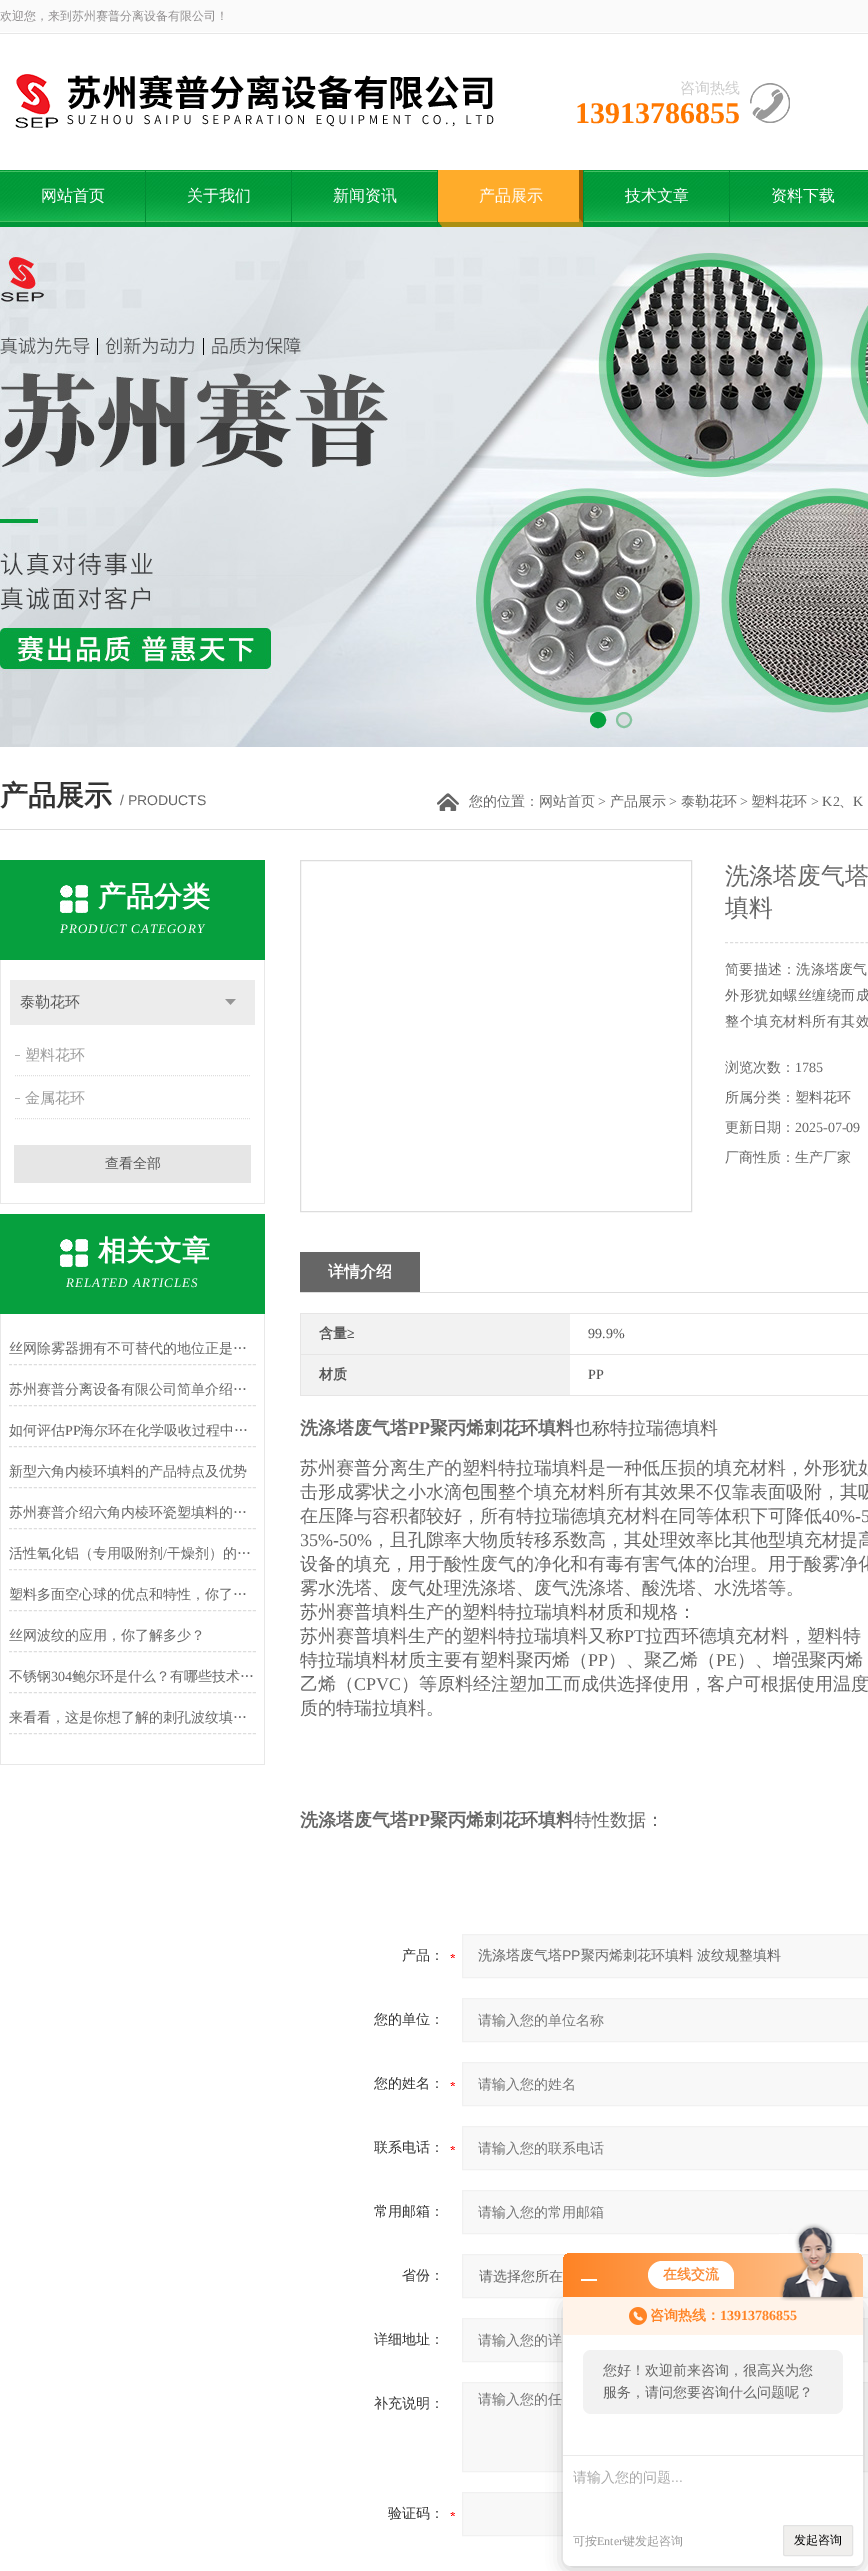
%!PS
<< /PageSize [868 2571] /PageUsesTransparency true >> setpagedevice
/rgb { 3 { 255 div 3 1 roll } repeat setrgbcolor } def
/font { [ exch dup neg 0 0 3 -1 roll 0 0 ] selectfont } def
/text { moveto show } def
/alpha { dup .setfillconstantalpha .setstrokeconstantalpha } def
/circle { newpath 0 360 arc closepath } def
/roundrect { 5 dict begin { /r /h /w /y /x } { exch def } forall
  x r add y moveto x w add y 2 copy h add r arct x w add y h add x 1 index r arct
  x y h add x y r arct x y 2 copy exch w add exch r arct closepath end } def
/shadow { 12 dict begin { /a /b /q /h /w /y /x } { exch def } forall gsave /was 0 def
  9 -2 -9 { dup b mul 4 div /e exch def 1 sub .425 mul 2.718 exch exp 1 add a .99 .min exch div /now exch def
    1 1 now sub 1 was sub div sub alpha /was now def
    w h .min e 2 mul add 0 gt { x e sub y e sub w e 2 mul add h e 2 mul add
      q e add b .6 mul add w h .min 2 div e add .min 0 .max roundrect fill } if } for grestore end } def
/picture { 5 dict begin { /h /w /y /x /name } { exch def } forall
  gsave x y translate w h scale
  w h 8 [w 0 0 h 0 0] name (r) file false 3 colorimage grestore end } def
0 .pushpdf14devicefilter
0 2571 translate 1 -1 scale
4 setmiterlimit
255 255 255 rgb
0 0 868 2571 rectfill
(img_01.rgb) 0 0 868 34 picture
(img_02.rgb) 15 74 479 55 picture
(img_03.rgb) 750 83 40 40 picture
(img_04.rgb) 0 170 868 57 picture
2 141 53 rgb
145 170 1 57 rectfill
291 170 1 57 rectfill
437 170 1 57 rectfill
583 170 1 57 rectfill
(img_05.rgb) 438 170 145 57 picture
729 170 1 57 rectfill
(img_06.rgb) 0 227 868 520 picture
6 160 62 rgb
598 720 7 circle gsave fill grestore
2 setlinewidth
stroke
0.4 alpha
204 204 204 rgb
624 720 8 circle fill
6 160 62 rgb
624 720 7 circle stroke
1 alpha
221 221 221 rgb
0 829 868 1 rectfill
(img_07.rgb) 437 793 22 18 picture
6 160 62 rgb
0 860 265 100 rectfill
(img_08.rgb) 60 885 28 28 picture
232 232 232 rgb
264 960 1 244 rectfill
0 1203 265 1 rectfill
0 960 1 244 rectfill
236 236 236 rgb
10 980 245 45 rectfill
(img_09.rgb) 225 999 11 6 picture
222 222 222 rgb
1 setlinewidth
[1 1] 0 setdash
15 1075.5 moveto 235 0 rlineto stroke
179 179 179 rgb
15 1055 5 1 rectfill
222 222 222 rgb
15 1118.5 moveto 235 0 rlineto stroke
179 179 179 rgb
15 1098 5 1 rectfill
230 230 230 rgb
14 1145 237 38 rectfill
6 160 62 rgb
0 1214 265 100 rectfill
(img_08.rgb) 60 1239 28 28 picture
232 232 232 rgb
264 1314 1 451 rectfill
0 1764 265 1 rectfill
0 1314 1 451 rectfill
222 222 222 rgb
[3 1.98] 0 setdash
9 1364.5 moveto 247 0 rlineto stroke
9 1405.5 moveto 247 0 rlineto stroke
9 1446.5 moveto 247 0 rlineto stroke
9 1487.5 moveto 247 0 rlineto stroke
9 1528.5 moveto 247 0 rlineto stroke
9 1569.5 moveto 247 0 rlineto stroke
9 1610.5 moveto 247 0 rlineto stroke
9 1651.5 moveto 247 0 rlineto stroke
9 1692.5 moveto 247 0 rlineto stroke
9 1733.5 moveto 247 0 rlineto stroke
221 221 221 rgb
[] 0 setdash
300.5 860.5 391 351 rectstroke
[3 2.02] 0 setdash
725 942.5 moveto 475 0 rlineto stroke
222 222 222 rgb
300 1292 568 1 rectfill
102 102 102 rgb
300 1252 120 40 rectfill
230 229 229 rgb
300 1313 568 1 rectfill
300 1313 1 83 rectfill
242 242 242 rgb
301 1314 269 40 rectfill
230 229 229 rgb
301 1354 567 1 rectfill
242 242 242 rgb
301 1355 269 40 rectfill
230 229 229 rgb
301 1395 567 1 rectfill
(img_10.rgb) 450 1954 5 4 picture
248 248 248 rgb
462.5 1934.5 moveto 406 0 rlineto 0 43 rlineto -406 0 rlineto closepath gsave fill grestore
241 241 241 rgb
[] 0 setdash
stroke
248 248 248 rgb
462.5 1998.5 moveto 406 0 rlineto 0 43 rlineto -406 0 rlineto closepath gsave fill grestore
241 241 241 rgb
stroke
(img_10.rgb) 450 2082 5 4 picture
248 248 248 rgb
462.5 2062.5 moveto 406 0 rlineto 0 43 rlineto -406 0 rlineto closepath gsave fill grestore
241 241 241 rgb
stroke
(img_10.rgb) 450 2146 5 4 picture
248 248 248 rgb
462.5 2126.5 moveto 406 0 rlineto 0 43 rlineto -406 0 rlineto closepath gsave fill grestore
241 241 241 rgb
stroke
248 248 248 rgb
462.5 2190.5 moveto 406 0 rlineto 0 43 rlineto -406 0 rlineto closepath gsave fill grestore
241 241 241 rgb
stroke
248 248 248 rgb
462.5 2254.5 moveto 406 0 rlineto 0 43 rlineto -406 0 rlineto closepath gsave fill grestore
241 241 241 rgb
stroke
248 248 248 rgb
462.5 2318.5 moveto 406 0 rlineto 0 43 rlineto -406 0 rlineto closepath gsave fill grestore
241 241 241 rgb
stroke
248 248 248 rgb
462.5 2382.5 moveto 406 0 rlineto 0 89 rlineto -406 0 rlineto closepath gsave fill grestore
241 241 241 rgb
stroke
(img_10.rgb) 450 2512 5 4 picture
248 248 248 rgb
463 2493 100 42 rectfill
241 241 241 rgb
462.5 2492.5 126 43 rectstroke
0 0 0 rgb
563 2301 300 269 8 8 0.2 shadow
gsave 571 2253 moveto 284 0 rlineto 4.5 0 8 3.5 8 8 rcurveto 0 36 rlineto -300 0 rlineto 0 -36 rlineto 0 -4.5 3.5 -8 8 -8 rcurveto closepath clip newpath
<< /ShadingType 2 /ColorSpace /DeviceRGB /Coords [563 2275 863 2275] /Extend [true true] /Function << /FunctionType 2 /Domain [0 1] /C0 [1 0.514 0.141] /C1 [0.996 0.796 0.612] /N 1 >> >> shfill grestore
255 255 255 rgb
581 2279 16 2 rectfill
662 2261 moveto 58 0 rlineto 7.5 0 14 6.5 14 14 rcurveto 0 14 rlineto -72 0 rlineto -7.5 0 -14 -6.5 -14 -14 rcurveto 0 -7.5 6.5 -14 14 -14 rcurveto closepath fill
563 2297 moveto 300 0 rlineto 0 261 rlineto 0 4.5 -3.5 8 -8 8 rcurveto -284 0 rlineto -4.5 0 -8 -3.5 -8 -8 rcurveto closepath fill
255 243 233 rgb
563 2297 300 38 rectfill
(img_11.rgb) 779 2223 76 78 picture
(img_12.rgb) 629 2307 18 18 picture
242 242 242 rgb
583 2350 260 64 8 roundrect fill
234 234 234 rgb
563 2455 300 1 rectfill
240 239 237 rgb
783.5 2525.5 69 30 1.5 roundrect gsave fill grestore
226 226 226 rgb
stroke
/WenQuanYiZenHei-Medium 12 font
146 144 145 rgb
(欢迎您，来到苏州赛普分离设备有限公司！) 0 20 text
/WenQuanYiZenHei-Medium 15 font
204 204 204 rgb
(咨询热线) 680 93 text
/LiberationSerif-Bold 30 font
255 120 0 rgb
(13913786855) 575 123 text
/WenQuanYiZenHei-Medium 16 font
255 255 255 rgb
(网站首页) 41 201 text
(关于我们) 187 201 text
(新闻资讯) 333 201 text
(产品展示) 479 201 text
(技术文章) 625 201 text
(资料下载) 771 201 text
/WenQuanYiZenHei-Bold 28 font
51 51 51 rgb
(产品展示) 0 805 text
/LiberationSans-Regular 14 font
102 102 102 rgb
(/ PRODUCTS) 120 805 text
/WenQuanYiZenHei-Medium 14 font
(您的位置：网站首页) 469 806 text
/LiberationSerif-Regular 14 font
(>) 598 806 text
/WenQuanYiZenHei-Medium 14 font
(产品展示) 610 806 text
/LiberationSerif-Regular 14 font
(>) 669 806 text
/WenQuanYiZenHei-Medium 14 font
(泰勒花环) 681 806 text
/LiberationSerif-Regular 14 font
(>) 740 806 text
/WenQuanYiZenHei-Medium 14 font
(塑料花环) 751 806 text
/LiberationSerif-Regular 14 font
(> K2) 811 806 text
(K) 853 806 text
/WenQuanYiZenHei-Medium 14 font
(、) 839 806 text
/WenQuanYiZenHei-Bold 28 font
255 255 255 rgb
(产品分类) 98 906 text
/LiberationSerif-Italic 13 font
60 933 moveto 1 0 (PRODUCT CATEGORY) ashow
/WenQuanYiZenHei-Medium 15 font
85 85 85 rgb
(泰勒花环) 20 1007 text
153 153 153 rgb
(塑料花环) 25 1060 text
(金属花环) 25 1103 text
/WenQuanYiZenHei-Medium 14 font
85 85 85 rgb
(查看全部) 105 1168 text
/WenQuanYiZenHei-Bold 28 font
255 255 255 rgb
(相关文章) 98 1260 text
/LiberationSerif-Italic 13 font
66 1287 moveto 1 0 (RELATED ARTICLES) ashow
/WenQuanYiZenHei-Medium 14 font
102 102 102 rgb
(丝网除雾器拥有不可替代的地位正是…) 9 1353 text
(苏州赛普分离设备有限公司简单介绍…) 9 1394 text
(如何评估) 9 1435 text
/LiberationSerif-Regular 14 font
(PP) 65 1435 text
/WenQuanYiZenHei-Medium 14 font
(海尔环在化学吸收过程中…) 80 1435 text
(新型六角内棱环填料的产品特点及优势) 9 1476 text
(苏州赛普介绍六角内棱环瓷塑填料的…) 9 1517 text
(活性氧化铝（专用吸附剂) 9 1558 text
/LiberationSerif-Regular 14 font
(/) 163 1558 text
/WenQuanYiZenHei-Medium 14 font
(干燥剂）的…) 167 1558 text
(塑料多面空心球的优点和特性，你了…) 9 1599 text
(丝网波纹的应用，你了解多少？) 9 1640 text
(不锈钢) 9 1681 text
/LiberationSerif-Regular 14 font
(304) 51 1681 text
/WenQuanYiZenHei-Medium 14 font
(鲍尔环是什么？有哪些技术…) 72 1681 text
(来看看，这是你想了解的刺孔波纹填…) 9 1722 text
/WenQuanYiZenHei-Medium 24 font
(洗涤塔废气塔) 725 884 text
(填料) 725 916 text
/WenQuanYiZenHei-Medium 14 font
725 974 moveto 0.25 0 (简要描述：洗涤塔废气) ashow
725 1000 moveto 0.5 0 (外形犹如螺丝缠绕而成) ashow
725 1026 moveto 0.5 0 (整个填充材料所有其效) ashow
(浏览次数：) 725 1072 text
/LiberationSerif-Regular 14 font
(1785) 795 1072 text
/WenQuanYiZenHei-Medium 14 font
(所属分类：塑料花环) 725 1102 text
(更新日期：) 725 1132 text
/LiberationSerif-Regular 14 font
(2025-07-09) 795 1132 text
/WenQuanYiZenHei-Medium 14 font
(厂商性质：生产厂家) 725 1162 text
/WenQuanYiZenHei-Bold 16 font
255 255 255 rgb
(详情介绍) 328 1277 text
/WenQuanYiZenHei-Bold 14 font
85 85 85 rgb
(含量) 319 1338 text
/LiberationSerif-Bold 14 font
(≥) 347 1338 text
/LiberationSerif-Regular 14 font
(99.9%) 588 1338 text
/WenQuanYiZenHei-Bold 14 font
(材质) 319 1379 text
/LiberationSerif-Regular 14 font
(PP) 588 1379 text
/WenQuanYiZenHei-Bold 18 font
102 102 102 rgb
(洗涤塔废气塔) 300 1434 text
/LiberationSerif-Bold 18 font
(PP) 408 1434 text
/WenQuanYiZenHei-Bold 18 font
(聚丙烯刺花环填料) 430 1434 text
/WenQuanYiZenHei-Medium 18 font
(也称特拉瑞德填料) 574 1434 text
(苏州赛普分离生产的塑料特拉瑞填料是一种低压损的填充材料，外形犹如) 300 1474 text
(击形成雾状之小水滴包围整个填充材料所有其效果不仅靠表面吸附，其吸) 300 1498 text
(在压降与容积都较好，所有特拉瑞德填充材料在同等体积下可降低) 300 1522 text
/LiberationSerif-Regular 18 font
(40%-5) 822 1522 text
(35%-50%) 300 1546 text
/WenQuanYiZenHei-Medium 18 font
(，且孔隙率大物质转移系数高，其处理效率比其他型填充材提高) 372 1546 text
(设备的填充，用于酸性废气的净化和有毒有害气体的治理。用于酸雾净化) 300 1570 text
(雾水洗塔、废气处理洗涤塔、废气洗涤塔、酸洗塔、水洗塔等。) 300 1594 text
(苏州赛普填料生产的塑料特拉瑞填料材质和规格：) 300 1618 text
(苏州赛普填料生产的塑料特拉瑞填料又称) 300 1642 text
/LiberationSerif-Regular 18 font
(PT) 624 1642 text
/WenQuanYiZenHei-Medium 18 font
(拉西环德填充材料，塑料特) 645 1642 text
(特拉瑞填料材质主要有塑料聚丙烯（) 300 1666 text
/LiberationSerif-Regular 18 font
(PP) 588 1666 text
/WenQuanYiZenHei-Medium 18 font
(）、聚乙烯（) 608 1666 text
/LiberationSerif-Regular 18 font
(PE) 716 1666 text
/WenQuanYiZenHei-Medium 18 font
(）、增强聚丙烯) 737 1666 text
(乙烯（) 300 1690 text
/LiberationSerif-Regular 18 font
(CPVC) 354 1690 text
/WenQuanYiZenHei-Medium 18 font
(）等原料经注塑加工而成供选择使用，客户可根据使用温度) 401 1690 text
(质的特瑞拉填料。) 300 1714 text
/WenQuanYiZenHei-Bold 18 font
(洗涤塔废气塔) 300 1826 text
/LiberationSerif-Bold 18 font
(PP) 408 1826 text
/WenQuanYiZenHei-Bold 18 font
(聚丙烯刺花环填料) 430 1826 text
/WenQuanYiZenHei-Medium 18 font
(特性数据：) 574 1826 text
/WenQuanYiZenHei-Medium 14 font
51 51 51 rgb
(产品：) 402 1960 text
102 102 102 rgb
(洗涤塔废气塔) 478 1960 text
/LiberationSans-Regular 14 font
(PP) 562 1960 text
/WenQuanYiZenHei-Medium 14 font
(聚丙烯刺花环填料 波纹规整填料) 581 1960 text
51 51 51 rgb
(您的单位：) 374 2024 text
117 117 117 rgb
(请输入您的单位名称) 478 2025 text
51 51 51 rgb
(您的姓名：) 374 2088 text
117 117 117 rgb
(请输入您的姓名) 478 2089 text
51 51 51 rgb
(联系电话：) 374 2152 text
117 117 117 rgb
(请输入您的联系电话) 478 2153 text
51 51 51 rgb
(常用邮箱：) 374 2216 text
117 117 117 rgb
(请输入您的常用邮箱) 478 2217 text
51 51 51 rgb
(省份：) 402 2280 text
102 102 102 rgb
(请选择您所在) 479 2281 text
51 51 51 rgb
(详细地址：) 374 2344 text
117 117 117 rgb
(请输入您的详) 478 2345 text
51 51 51 rgb
(补充说明：) 374 2408 text
117 117 117 rgb
(请输入您的任) 478 2404 text
51 51 51 rgb
(验证码：) 388 2518 text
/WenQuanYiZenHei-Bold 14 font
251 139 54 rgb
(在线交流) 663 2279 text
255 132 38 rgb
(咨询热线：) 650 2320 text
/LiberationSerif-Bold 14 font
(13913786855) 720 2320 text
/WenQuanYiZenHei-Medium 14 font
102 102 102 rgb
(您好！欢迎前来咨询，很高兴为您) 603 2375 text
(服务，请问您要咨询什么问题呢？) 603 2397 text
170 170 170 rgb
(请输入您的问题) 573 2482 text
/LiberationSans-Regular 14 font
(...) 671 2482 text
/WenQuanYiZenHei-Medium 12 font
153 153 153 rgb
(可按) 573 2545 text
/LiberationSerif-Regular 12 font
(Enter) 597 2545 text
/WenQuanYiZenHei-Medium 12 font
(键发起咨询) 623 2545 text
0 0 0 rgb
(发起咨询) 794 2544 text
.poppdf14devicefilter showpage
